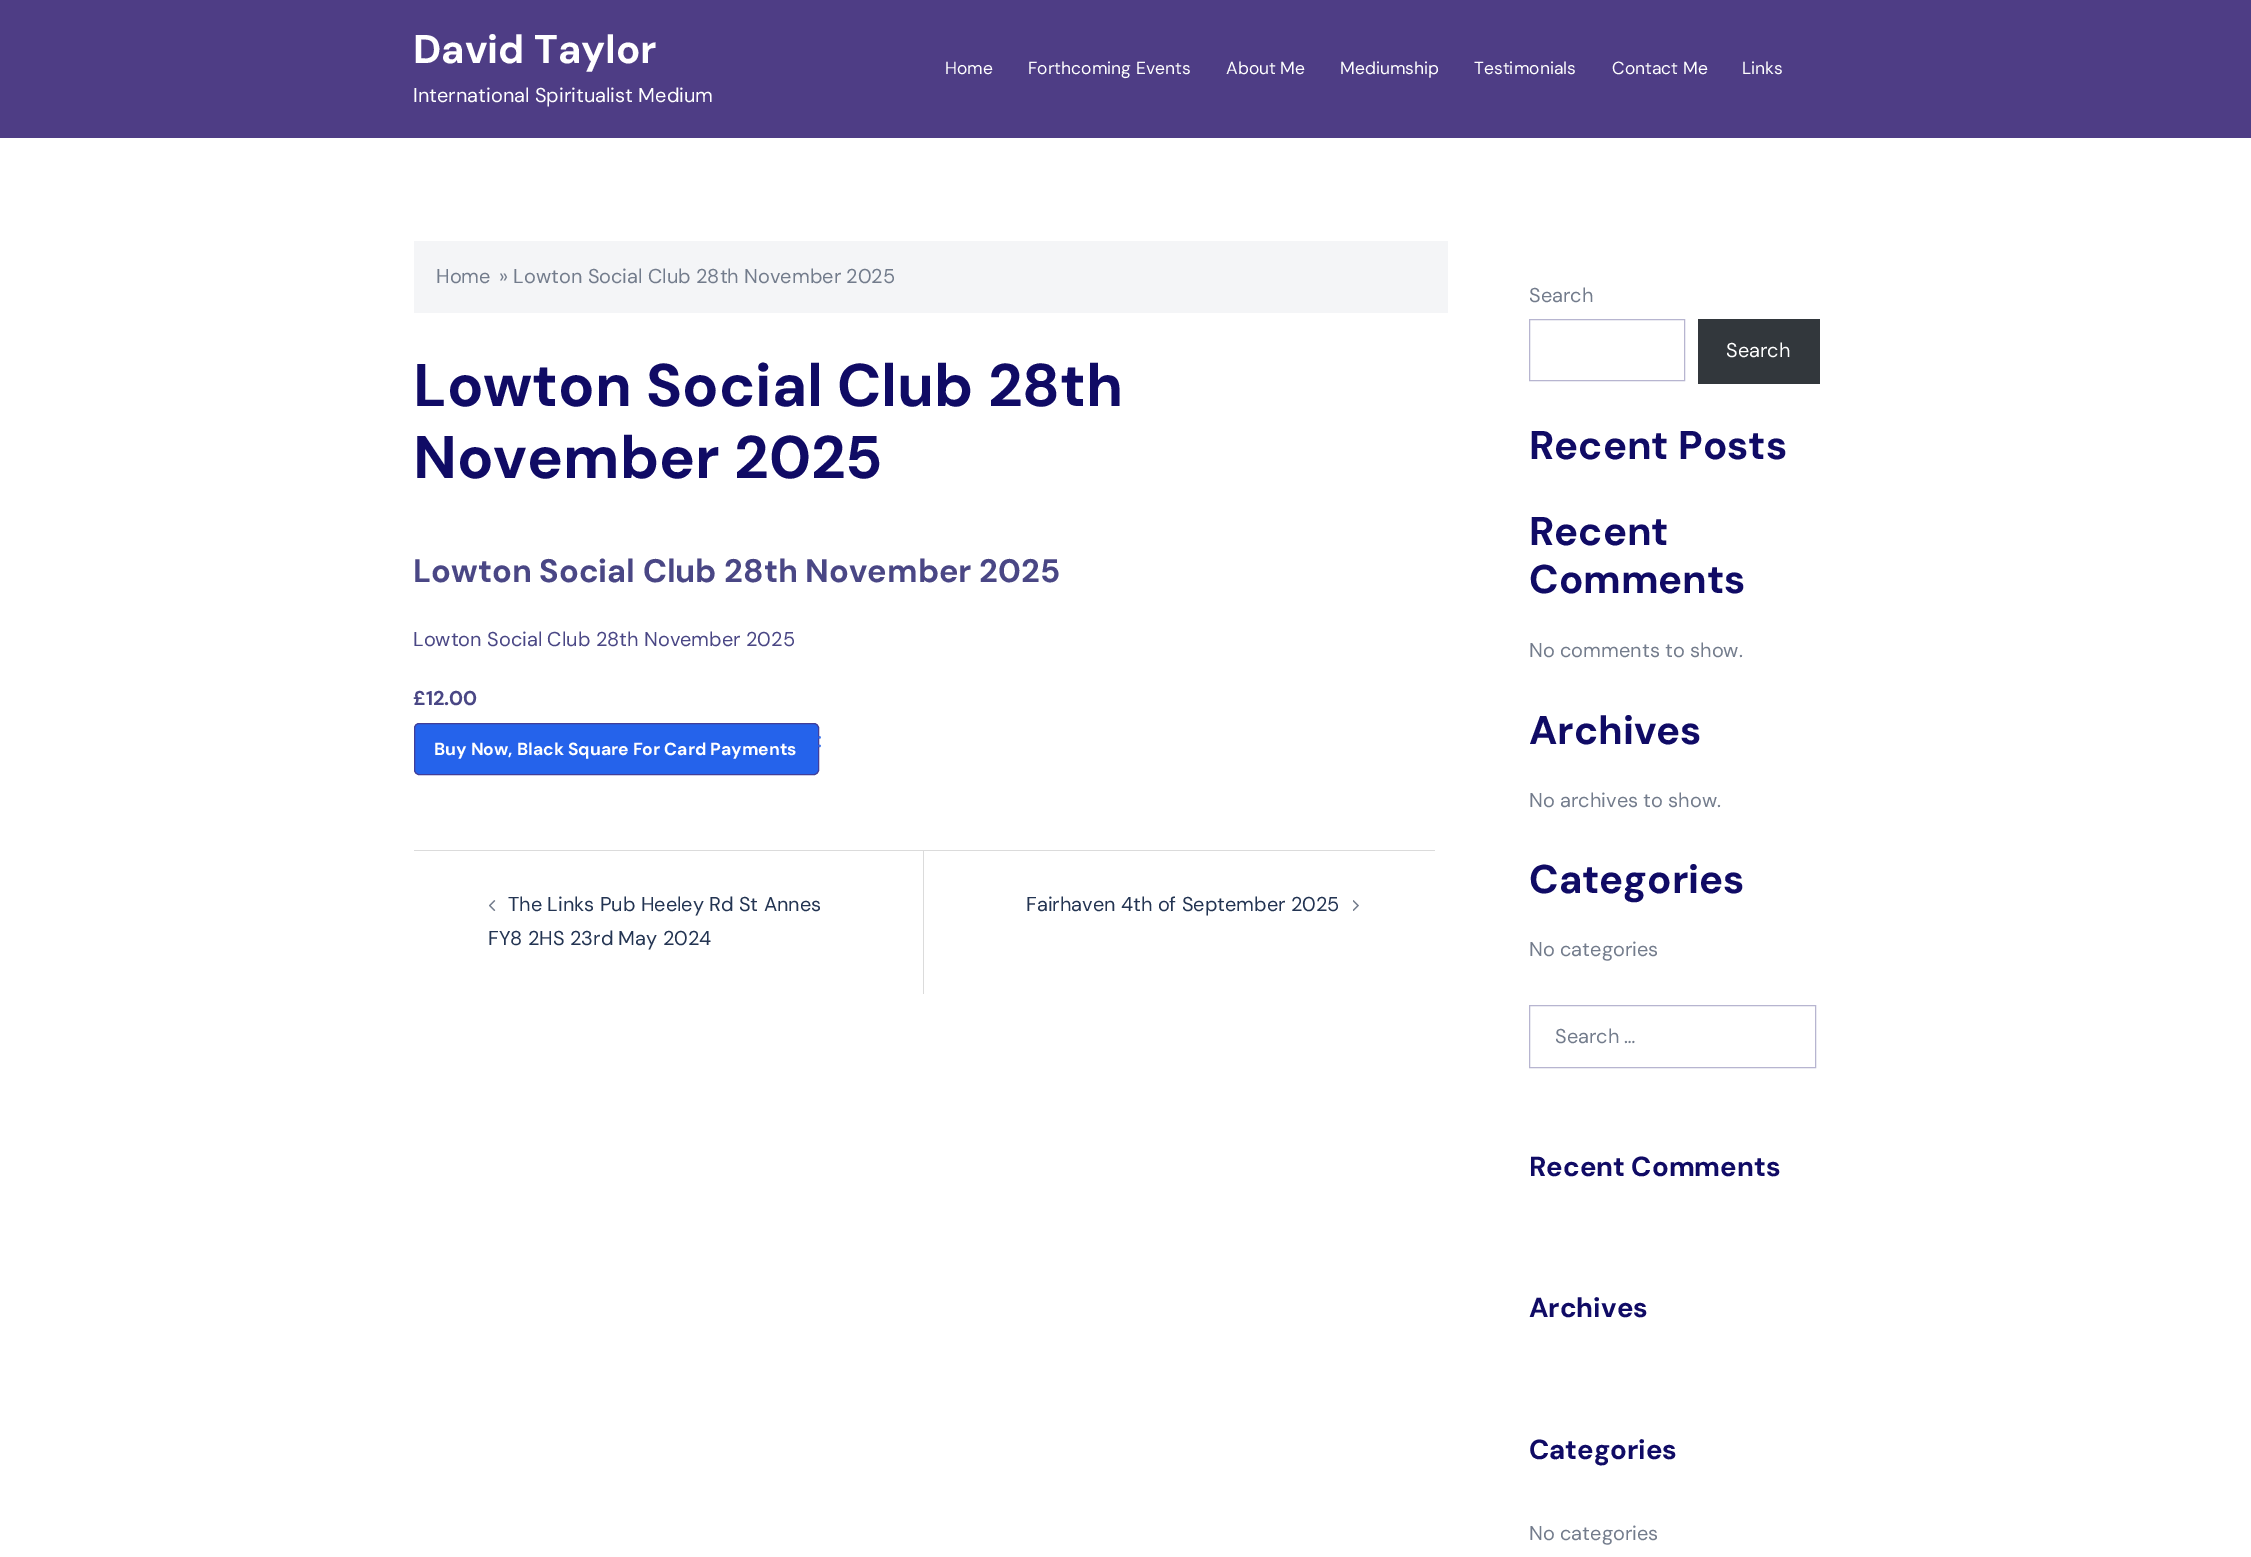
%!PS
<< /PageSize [2251 1557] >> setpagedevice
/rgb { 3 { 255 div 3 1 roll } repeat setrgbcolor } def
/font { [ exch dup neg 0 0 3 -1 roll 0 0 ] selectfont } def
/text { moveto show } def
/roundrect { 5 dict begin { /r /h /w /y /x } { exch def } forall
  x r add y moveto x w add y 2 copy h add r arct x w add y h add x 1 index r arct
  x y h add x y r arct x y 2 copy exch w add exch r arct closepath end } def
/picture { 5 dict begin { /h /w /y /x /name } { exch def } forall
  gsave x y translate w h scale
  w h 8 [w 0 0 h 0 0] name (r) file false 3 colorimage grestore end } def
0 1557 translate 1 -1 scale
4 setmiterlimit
255 255 255 rgb
0 0 2251 1557 rectfill
78 61 133 rgb
0 0 2251 138 rectfill
244 245 247 rgb
414 241 1034 72 rectfill
37 99 235 rgb
414.5 723.5 404 51 4.5 roundrect gsave fill grestore
66 62 152 rgb
stroke
219 219 219 rgb
414 850 1021 1 rectfill
923 851 1 143 rectfill
(img_01.rgb) 489 900 7 11 picture
(img_02.rgb) 1353 900 6 11 picture
183 181 208 rgb
1529.5 319.5 155 61 rectstroke
50 55 60 rgb
1698 319 122 65 rectfill
183 181 208 rgb
1529.5 1005.5 286 62 rectstroke
/DMSans-Bold 40 font
255 255 255 rgb
(David Taylor) 413 63 text
/DMSans-Regular 20 font
(International Spiritualist Medium) 413 102 text
/DMSans-Regular 17.5 font
(Home) 945 74 text
(Forthcoming Events) 1028 74 text
(About Me) 1226 74 text
(Mediumship) 1340 74 text
(Testimonials) 1474 74 text
(Contact Me) 1612 74 text
(Links) 1742 74 text
/DMSans-Regular 20 font
115 124 140 rgb
(Home) 436 283 text
(» Lowton Social Club 28th November 2025) 499 283 text
/DMSans-Bold 60 font
16 11 101 rgb
(Lowton Social Club 28th) 413 406 text
(November 2025) 413 478 text
/DMSans-Bold 32.5 font
74 71 133 rgb
(Lowton Social Club 28th November 2025) 413 582 text
/DMSans-Regular 20 font
(Lowton Social Club 28th November 2025) 413 646 text
/DMSans-Bold 20 font
(£12.00) 413 705 text
/DMSans-Bold 17.5 font
255 255 255 rgb
(Buy Now, Black Square For Card Payments) 434 755 text
/NotoSans-Regular 20 font
56 112 236 rgb
(:) 817 747 text
/DMSans-Regular 20 font
35 52 82 rgb
(The Links Pub Heeley Rd St Annes) 508 911 text
(FY8 2HS 23rd May 2024) 488 945 text
(Fairhaven 4th of September 2025) 1026 911 text
115 124 140 rgb
(Search) 1529 302 text
255 255 255 rgb
(Search) 1726 357 text
/DMSans-Bold 40 font
16 11 101 rgb
(Recent Posts) 1529 459 text
(Recent) 1529 545 text
(Comments) 1529 593 text
/DMSans-Regular 20 font
115 124 140 rgb
(No comments to show.) 1529 657 text
/DMSans-Bold 40 font
16 11 101 rgb
(Archives) 1529 744 text
/DMSans-Regular 20 font
115 124 140 rgb
(No archives to show.) 1529 807 text
/DMSans-Bold 40 font
16 11 101 rgb
(Categories) 1529 893 text
/DMSans-Regular 20 font
115 124 140 rgb
(No categories) 1529 956 text
(Search …) 1555 1043 text
/DMSans-Bold 27.5 font
16 11 101 rgb
(Recent Comments) 1529 1176 text
(Archives) 1529 1317 text
(Categories) 1529 1459 text
/DMSans-Regular 20 font
115 124 140 rgb
(No categories) 1529 1540 text
showpage
